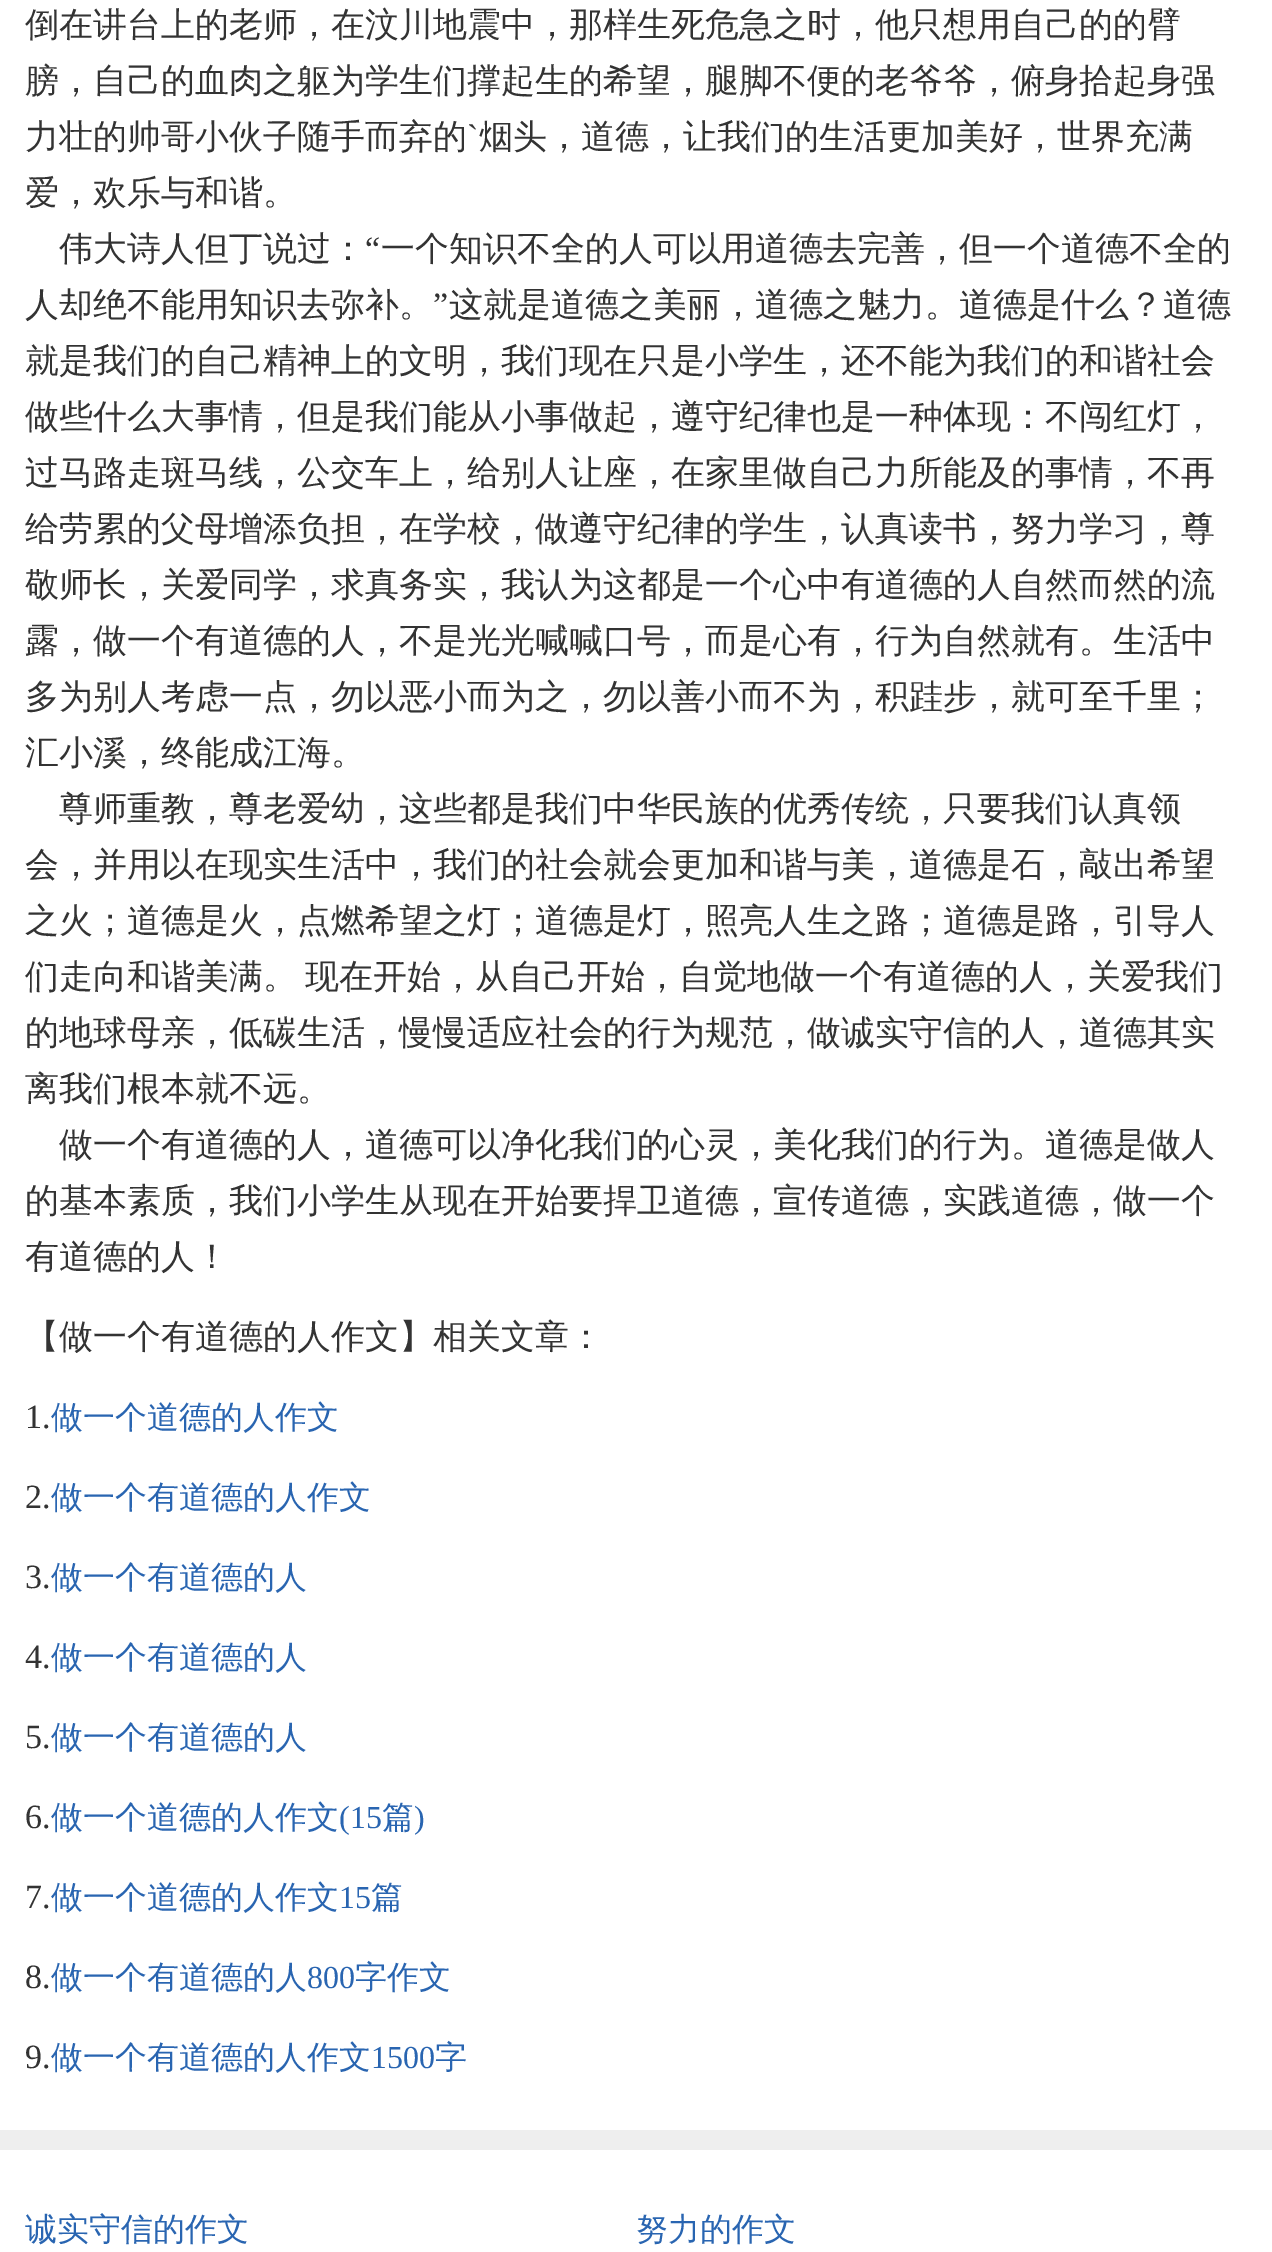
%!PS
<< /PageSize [1272 2252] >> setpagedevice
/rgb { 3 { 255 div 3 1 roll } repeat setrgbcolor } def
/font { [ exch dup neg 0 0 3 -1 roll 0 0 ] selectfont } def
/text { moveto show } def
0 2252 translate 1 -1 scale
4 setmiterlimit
255 255 255 rgb
0 0 1272 2252 rectfill
238 238 238 rgb
0 2130 1272 20 rectfill
/WenQuanYiZenHei-Medium 34 font
51 51 51 rgb
(倒在讲台上的老师，在汶川地震中，那样生死危急之时，他只想用自己的的臂) 25 36 text
(膀，自己的血肉之躯为学生们撑起生的希望，腿脚不便的老爷爷，俯身拾起身强) 25 92 text
(力壮的帅哥小伙子随手而弃的) 25 148 text
/LiberationSerif-Regular 34 font
(`) 467 148 text
/WenQuanYiZenHei-Medium 34 font
(烟头，道德，让我们的生活更加美好，世界充满) 479 148 text
(爱，欢乐与和谐。) 25 204 text
(伟大诗人但丁说过：) 59 260 text
/LiberationSerif-Regular 34 font
(“) 365 260 text
/WenQuanYiZenHei-Medium 34 font
(一个知识不全的人可以用道德去完善，但一个道德不全的) 381 260 text
(人却绝不能用知识去弥补。) 25 316 text
/LiberationSerif-Regular 34 font
(”) 433 316 text
/WenQuanYiZenHei-Medium 34 font
(这就是道德之美丽，道德之魅力。道德是什么？道德) 449 316 text
(就是我们的自己精神上的文明，我们现在只是小学生，还不能为我们的和谐社会) 25 372 text
(做些什么大事情，但是我们能从小事做起，遵守纪律也是一种体现：不闯红灯，) 25 428 text
(过马路走斑马线，公交车上，给别人让座，在家里做自己力所能及的事情，不再) 25 484 text
(给劳累的父母增添负担，在学校，做遵守纪律的学生，认真读书，努力学习，尊) 25 540 text
(敬师长，关爱同学，求真务实，我认为这都是一个心中有道德的人自然而然的流) 25 596 text
(露，做一个有道德的人，不是光光喊喊口号，而是心有，行为自然就有。生活中) 25 652 text
(多为别人考虑一点，勿以恶小而为之，勿以善小而不为，积跬步，就可至千里；) 25 708 text
(汇小溪，终能成江海。) 25 764 text
(尊师重教，尊老爱幼，这些都是我们中华民族的优秀传统，只要我们认真领) 59 820 text
(会，并用以在现实生活中，我们的社会就会更加和谐与美，道德是石，敲出希望) 25 876 text
(之火；道德是火，点燃希望之灯；道德是灯，照亮人生之路；道德是路，引导人) 25 932 text
25 988 moveto -2 0 32 (们走向和谐美满。 现在开始，从自己开始，自觉地做一个有道德的人，关爱我们) widthshow
(的地球母亲，低碳生活，慢慢适应社会的行为规范，做诚实守信的人，道德其实) 25 1044 text
(离我们根本就不远。) 25 1100 text
(做一个有道德的人，道德可以净化我们的心灵，美化我们的行为。道德是做人) 59 1156 text
(的基本素质，我们小学生从现在开始要捍卫道德，宣传道德，实践道德，做一个) 25 1212 text
(有道德的人！) 25 1268 text
(【做一个有道德的人作文】相关文章：) 25 1348 text
/LiberationSerif-Regular 34 font
(1.) 25 1428 text
/WenQuanYiZenHei-Medium 32 font
41 101 177 rgb
(做一个道德的人作文) 51 1428 text
/LiberationSerif-Regular 34 font
51 51 51 rgb
(2.) 25 1508 text
/WenQuanYiZenHei-Medium 32 font
41 101 177 rgb
(做一个有道德的人作文) 51 1508 text
/LiberationSerif-Regular 34 font
51 51 51 rgb
(3.) 25 1588 text
/WenQuanYiZenHei-Medium 32 font
41 101 177 rgb
(做一个有道德的人) 51 1588 text
/LiberationSerif-Regular 34 font
51 51 51 rgb
(4.) 25 1668 text
/WenQuanYiZenHei-Medium 32 font
41 101 177 rgb
(做一个有道德的人) 51 1668 text
/LiberationSerif-Regular 34 font
51 51 51 rgb
(5.) 25 1748 text
/WenQuanYiZenHei-Medium 32 font
41 101 177 rgb
(做一个有道德的人) 51 1748 text
/LiberationSerif-Regular 34 font
51 51 51 rgb
(6.) 25 1828 text
/WenQuanYiZenHei-Medium 32 font
41 101 177 rgb
(做一个道德的人作文) 51 1828 text
/LiberationSerif-Regular 32 font
(\(15) 339 1828 text
/WenQuanYiZenHei-Medium 32 font
(篇) 382 1828 text
/LiberationSerif-Regular 32 font
(\)) 414 1828 text
/LiberationSerif-Regular 34 font
51 51 51 rgb
(7.) 25 1908 text
/WenQuanYiZenHei-Medium 32 font
41 101 177 rgb
(做一个道德的人作文) 51 1908 text
/LiberationSerif-Regular 32 font
(15) 339 1908 text
/WenQuanYiZenHei-Medium 32 font
(篇) 371 1908 text
/LiberationSerif-Regular 34 font
51 51 51 rgb
(8.) 25 1988 text
/WenQuanYiZenHei-Medium 32 font
41 101 177 rgb
(做一个有道德的人) 51 1988 text
/LiberationSerif-Regular 32 font
(800) 307 1988 text
/WenQuanYiZenHei-Medium 32 font
(字作文) 355 1988 text
/LiberationSerif-Regular 34 font
51 51 51 rgb
(9.) 25 2068 text
/WenQuanYiZenHei-Medium 32 font
41 101 177 rgb
(做一个有道德的人作文) 51 2068 text
/LiberationSerif-Regular 32 font
(1500) 371 2068 text
/WenQuanYiZenHei-Medium 32 font
(字) 435 2068 text
(诚实守信的作文) 25 2240 text
(努力的作文) 636 2240 text
showpage
